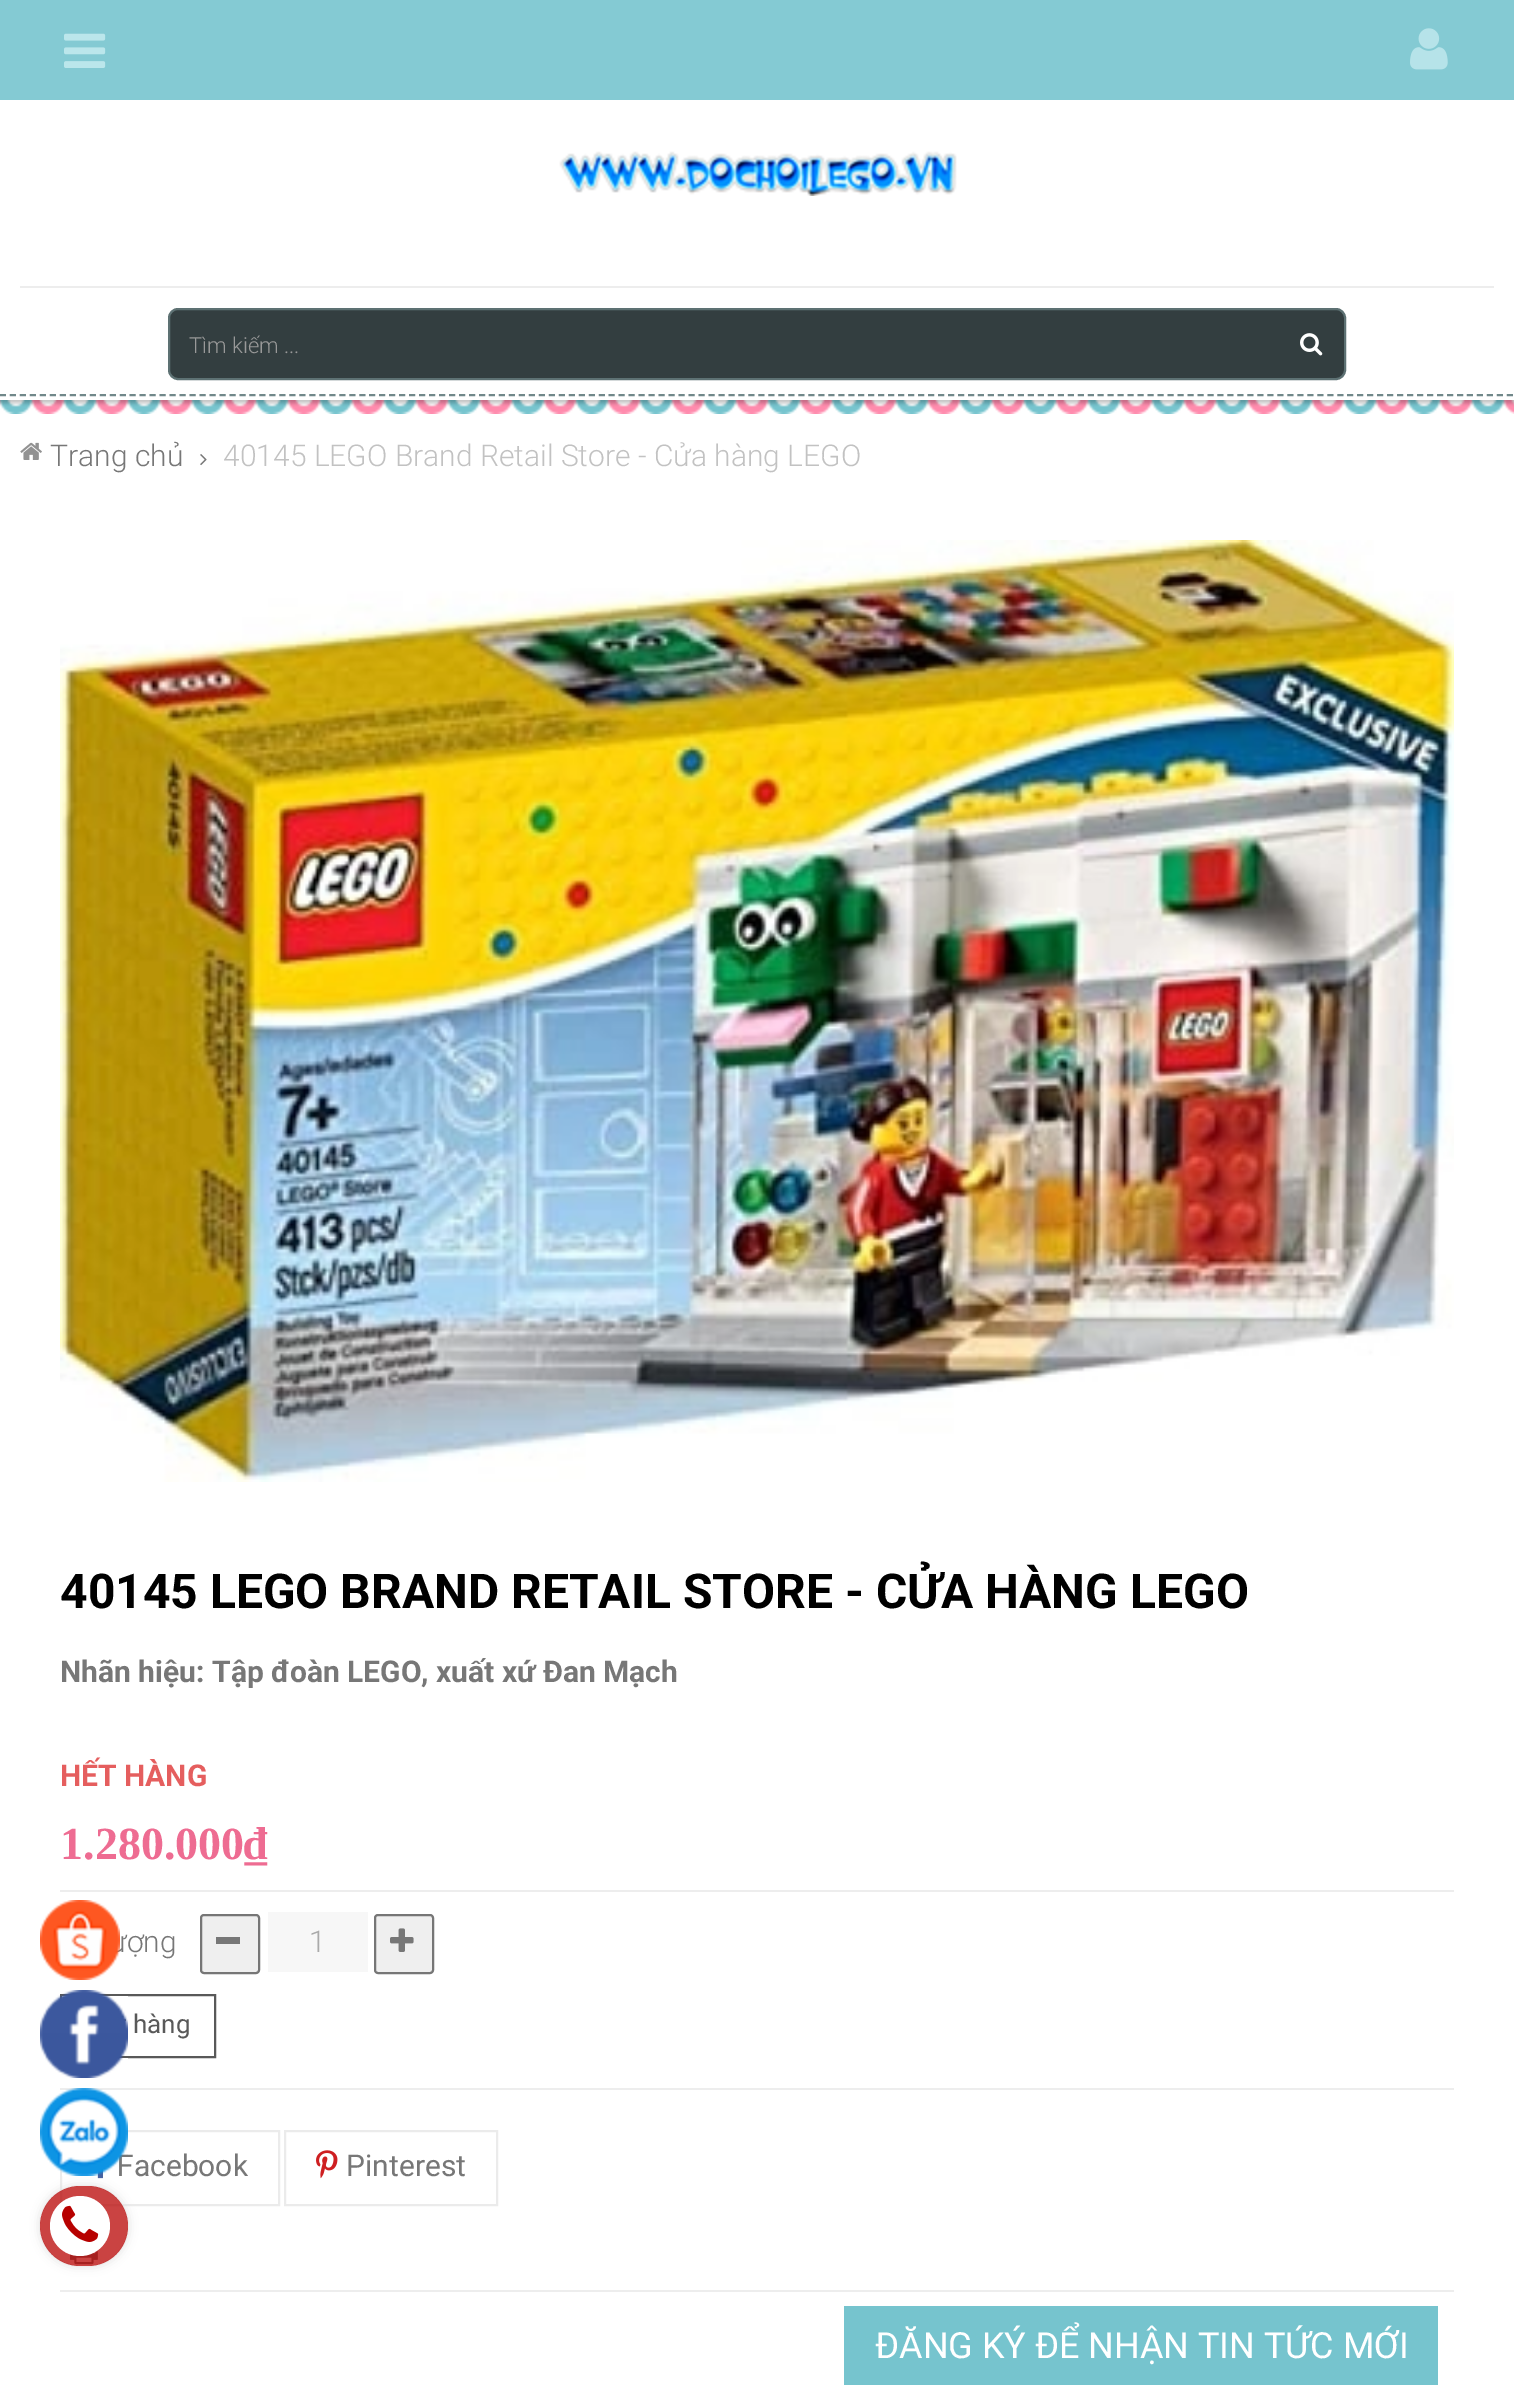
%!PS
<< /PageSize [1514 2385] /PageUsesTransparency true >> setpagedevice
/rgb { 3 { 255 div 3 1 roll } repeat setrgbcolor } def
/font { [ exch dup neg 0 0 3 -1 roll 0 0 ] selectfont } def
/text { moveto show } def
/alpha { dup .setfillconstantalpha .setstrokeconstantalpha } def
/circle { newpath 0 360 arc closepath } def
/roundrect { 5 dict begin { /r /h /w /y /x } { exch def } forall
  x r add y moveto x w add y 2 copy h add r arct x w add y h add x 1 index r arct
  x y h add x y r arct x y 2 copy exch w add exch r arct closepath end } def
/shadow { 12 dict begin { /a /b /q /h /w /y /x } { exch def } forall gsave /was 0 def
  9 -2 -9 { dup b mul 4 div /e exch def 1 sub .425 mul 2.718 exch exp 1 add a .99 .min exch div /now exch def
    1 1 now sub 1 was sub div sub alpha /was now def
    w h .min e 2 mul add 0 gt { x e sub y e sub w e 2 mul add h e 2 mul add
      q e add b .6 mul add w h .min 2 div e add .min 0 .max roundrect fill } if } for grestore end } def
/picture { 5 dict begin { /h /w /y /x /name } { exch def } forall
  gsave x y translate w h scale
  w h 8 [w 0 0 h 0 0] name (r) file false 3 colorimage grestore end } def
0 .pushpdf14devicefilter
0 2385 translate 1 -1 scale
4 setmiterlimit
255 255 255 rgb
0 0 1514 2385 rectfill
132 202 211 rgb
0 0 1514 100 rectfill
(img_01.rgb) 1410 28 38 42 picture
(img_02.rgb) 64 33 42 35 picture
113 136 138 rgb
2 setlinewidth
[6 3.98] 0 setdash
0 395 moveto 1514 0 rlineto stroke
(img_03.rgb) 0 400 1514 14 picture
(img_04.rgb) 559 151 398 45 picture
237 237 237 rgb
20 286 1474 2 rectfill
51 62 64 rgb
169 309 1176 70 9 roundrect gsave fill grestore
93 113 115 rgb
[] 0 setdash
stroke
(img_05.rgb) 1300 333 23 23 picture
(img_06.rgb) 20 442 22 18 picture
(img_07.rgb) 200 454 7 12 picture
(img_08.rgb) 60 540 1394 942 picture
237 237 237 rgb
60 1890 1394 2 rectfill
239 239 239 rgb
201 1915 58 58 3 roundrect gsave fill grestore
118 118 118 rgb
stroke
119 119 119 rgb
216 1937 24 7 rectfill
247 247 247 rgb
268 1912 100 60 rectfill
239 239 239 rgb
375 1915 58 58 3 roundrect gsave fill grestore
118 118 118 rgb
stroke
(img_09.rgb) 390 1928 24 24 picture
89 89 89 rgb
61 1995 154 62 rectstroke
237 237 237 rgb
60 2088 1394 2 rectfill
235 235 235 rgb
61 2131 218 74 rectstroke
(img_10.rgb) 97 2169 6 10 picture
285 2131 212 74 rectstroke
(img_11.rgb) 316 2150 22 29 picture
(img_12.rgb) 70 2250 28 15 picture
237 237 237 rgb
60 2290 1394 2 rectfill
(img_14.rgb) 40 1990 88 88 picture
gsave
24 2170 moveto 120 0 rlineto 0 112 rlineto -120 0 rlineto closepath 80 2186 moveto 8 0 rlineto 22 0 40 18 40 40 rcurveto 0 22 -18 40 -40 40 rcurveto -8 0 rlineto -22 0 -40 -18 -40 -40 rcurveto 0 -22 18 -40 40 -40 rcurveto closepath eoclip newpath
221 221 221 rgb
40 2186 88 80 40 5 1 shadow
grestore
0.74 alpha
183 1 0 rgb
40 2186 88 80 40 roundrect fill
1 alpha
255 255 255 rgb
80 2226 30 circle fill
(img_16.rgb) 62 2205 37 37 picture
118 196 206 rgb
844 2306 594 79 rectfill
/Roboto-Light 22 font
153 153 153 rgb
(Tìm kiếm ...) 189 353 text
/Roboto-Light 30 font
119 119 119 rgb
(Trang chủ) 50 466 text
194 194 194 rgb
(40145 LEGO Brand Retail Store - Cửa hàng LEGO) 223 466 text
/Roboto-Bold 48 font
0 0 0 rgb
(40145 LEGO BRAND RETAIL STORE - CỬA HÀNG LEGO) 60 1608 text
/Roboto-Bold 30 font
119 119 119 rgb
(Nhãn hiệu: Tập đoàn LEGO, xuất xứ Đan Mạch) 60 1682 text
229 94 94 rgb
(HẾT HÀNG) 60 1786 text
/LiberationSerif-Bold 46 font
238 108 146 rgb
(1.280.000₫) 60 1859 text
/Roboto-Light 30 font
119 119 119 rgb
(ượng) 109 1952 text
170 170 170 rgb
(1) 309 1952 text
/Roboto-Regular 26 font
89 89 89 rgb
(hàng) 133 2033 text
/Roboto-Regular 30 font
119 119 119 rgb
(Facebook) 117 2176 text
(Pinterest) 346 2176 text
(img_13.rgb) 40 1900 80 80 picture
(img_15.rgb) 40 2088 88 88 picture
/Roboto-Regular 36 font
255 255 255 rgb
(ĐĂNG KÝ ĐỂ NHẬN TIN TỨC MỚI) 875 2358 text
.poppdf14devicefilter showpage
